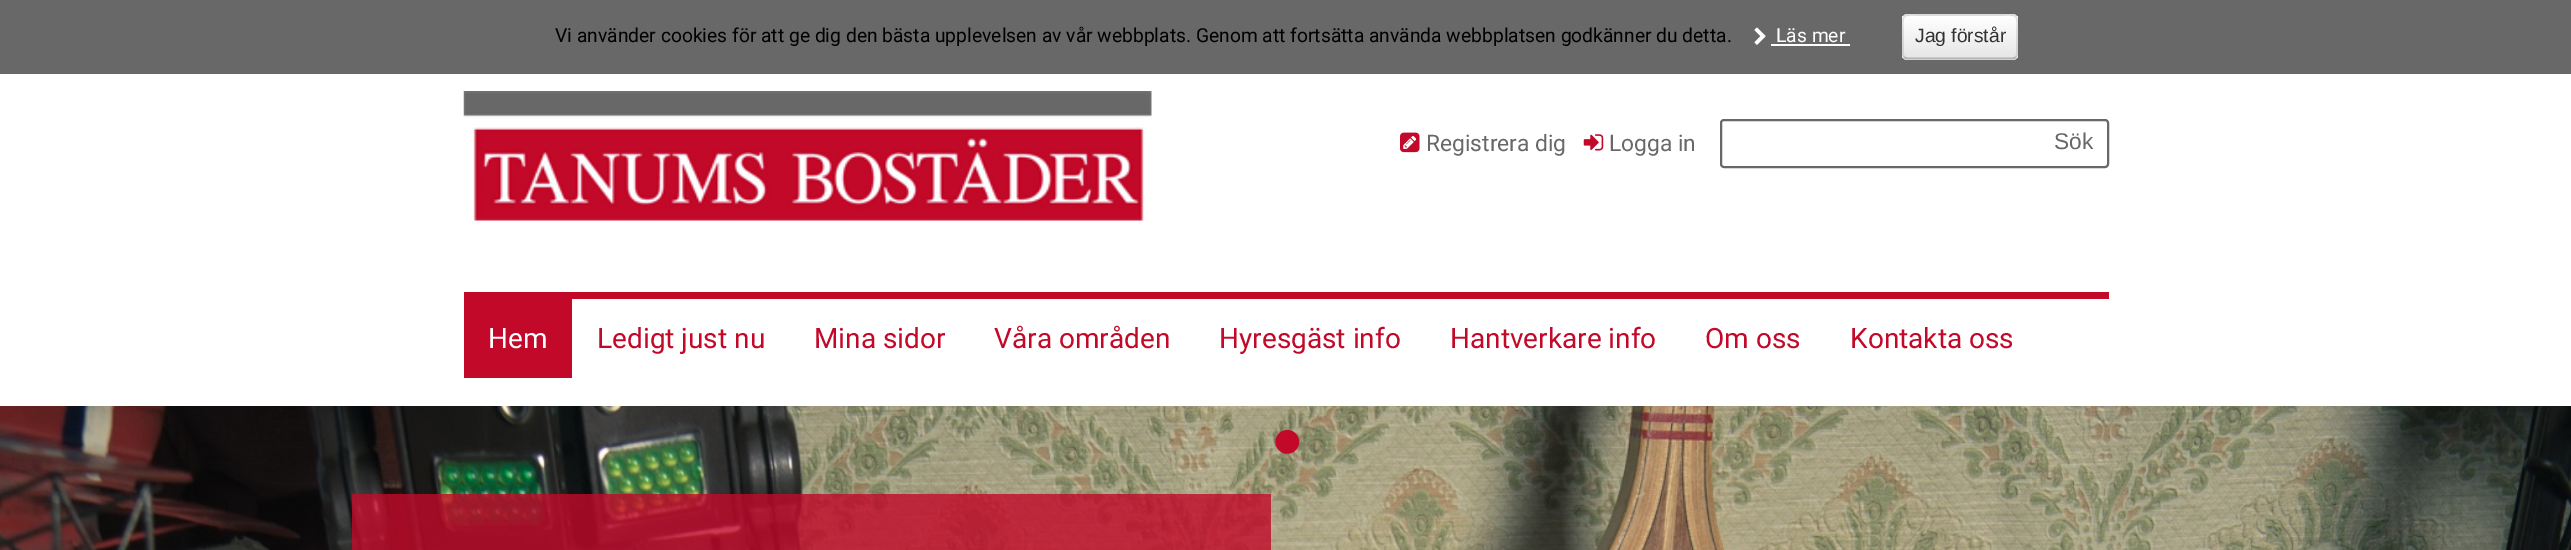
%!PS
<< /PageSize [2571 550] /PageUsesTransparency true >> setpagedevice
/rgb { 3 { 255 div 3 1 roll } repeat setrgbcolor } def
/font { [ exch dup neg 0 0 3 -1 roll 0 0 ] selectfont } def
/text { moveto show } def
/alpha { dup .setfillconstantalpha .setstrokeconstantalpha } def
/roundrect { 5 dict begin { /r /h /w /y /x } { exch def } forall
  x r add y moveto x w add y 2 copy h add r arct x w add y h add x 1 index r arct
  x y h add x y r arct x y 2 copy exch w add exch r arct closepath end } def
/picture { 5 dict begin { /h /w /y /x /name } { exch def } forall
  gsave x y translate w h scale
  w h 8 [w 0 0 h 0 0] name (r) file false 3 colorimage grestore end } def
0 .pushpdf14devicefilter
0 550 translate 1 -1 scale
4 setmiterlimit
255 255 255 rgb
0 0 2571 550 rectfill
104 104 104 rgb
0 0 2571 74 rectfill
(img_01.rgb) 1754 27 12 18 picture
255 255 255 rgb
1771 44 79 2 rectfill
245 245 245 rgb
1902 14 116 46 5 roundrect fill
gsave
1902 14 116 46 5 roundrect clip newpath
gsave 1902 16 moveto 116 0 rlineto 0 42 rlineto -116 0 rlineto closepath clip newpath
<< /ShadingType 2 /ColorSpace /DeviceRGB /Coords [1960 16 1960 58] /Extend [true true] /Function << /FunctionType 2 /Domain [0 1] /C0 [1 1 1] /C1 [0.902 0.902 0.902] /N 1 >> >> shfill grestore
grestore
179 179 179 rgb
1.8 setlinewidth
2015.5 57.5 moveto -2.5 1 rlineto -106 0 rlineto -2.5 -1 rlineto stroke
0.1 alpha
0 0 0 rgb
1904.5 57.5 moveto -2.5 -2.5 -1.5 -6.5 -1.5 -9 rcurveto 0 -11.5 rlineto 0 -26 -4 -22 22 -22 rcurveto 70 0 rlineto 26 0 22 -4 22 22 rcurveto 0 11.5 rlineto 0 2.5 1 6.5 -1.5 9 rcurveto stroke
1 alpha
(img_02.rgb) 463 91 689 130 picture
(img_03.rgb) 1400 132 20 21 picture
(img_04.rgb) 1583 134 21 17 picture
104 104 104 rgb
2 setlinewidth
1721 120 387 47 3 roundrect stroke
194 9 41 rgb
464 292 1645 7 rectfill
464 299 108 79 rectfill
(img_05.rgb) 0 406 2571 144 picture
0.8 alpha
352 494 919 56 rectfill
/Roboto-Regular 19.25 font
1 alpha
0 0 0 rgb
(Vi använder cookies för att ge dig den bästa upplevelsen av vår webbplats. Genom att fortsätta använda webbplatsen godkänner du detta.) 555 42 text
255 255 255 rgb
(Läs mer) 1776 42 text
/LiberationSans-Regular 19.25 font
51 51 51 rgb
(Jag förstår) 1915 42 text
/Roboto-Regular 22.75 font
104 104 104 rgb
(Registrera dig) 1426 151 text
(Logga in) 1609 151 text
/LiberationSans-Regular 22.75 font
(Sök) 2054 149 text
/Roboto-Regular 28 font
255 255 255 rgb
(Hem) 488 348 text
194 9 41 rgb
(Ledigt just nu) 597 348 text
(Mina sidor) 814 348 text
(Våra områden) 994 348 text
(Hyresgäst info) 1219 348 text
(Hantverkare info) 1450 348 text
(Om oss) 1705 348 text
(Kontakta oss) 1850 348 text
/LiberationSans-Regular 88 font
(•) 1272 471 text
.poppdf14devicefilter showpage
